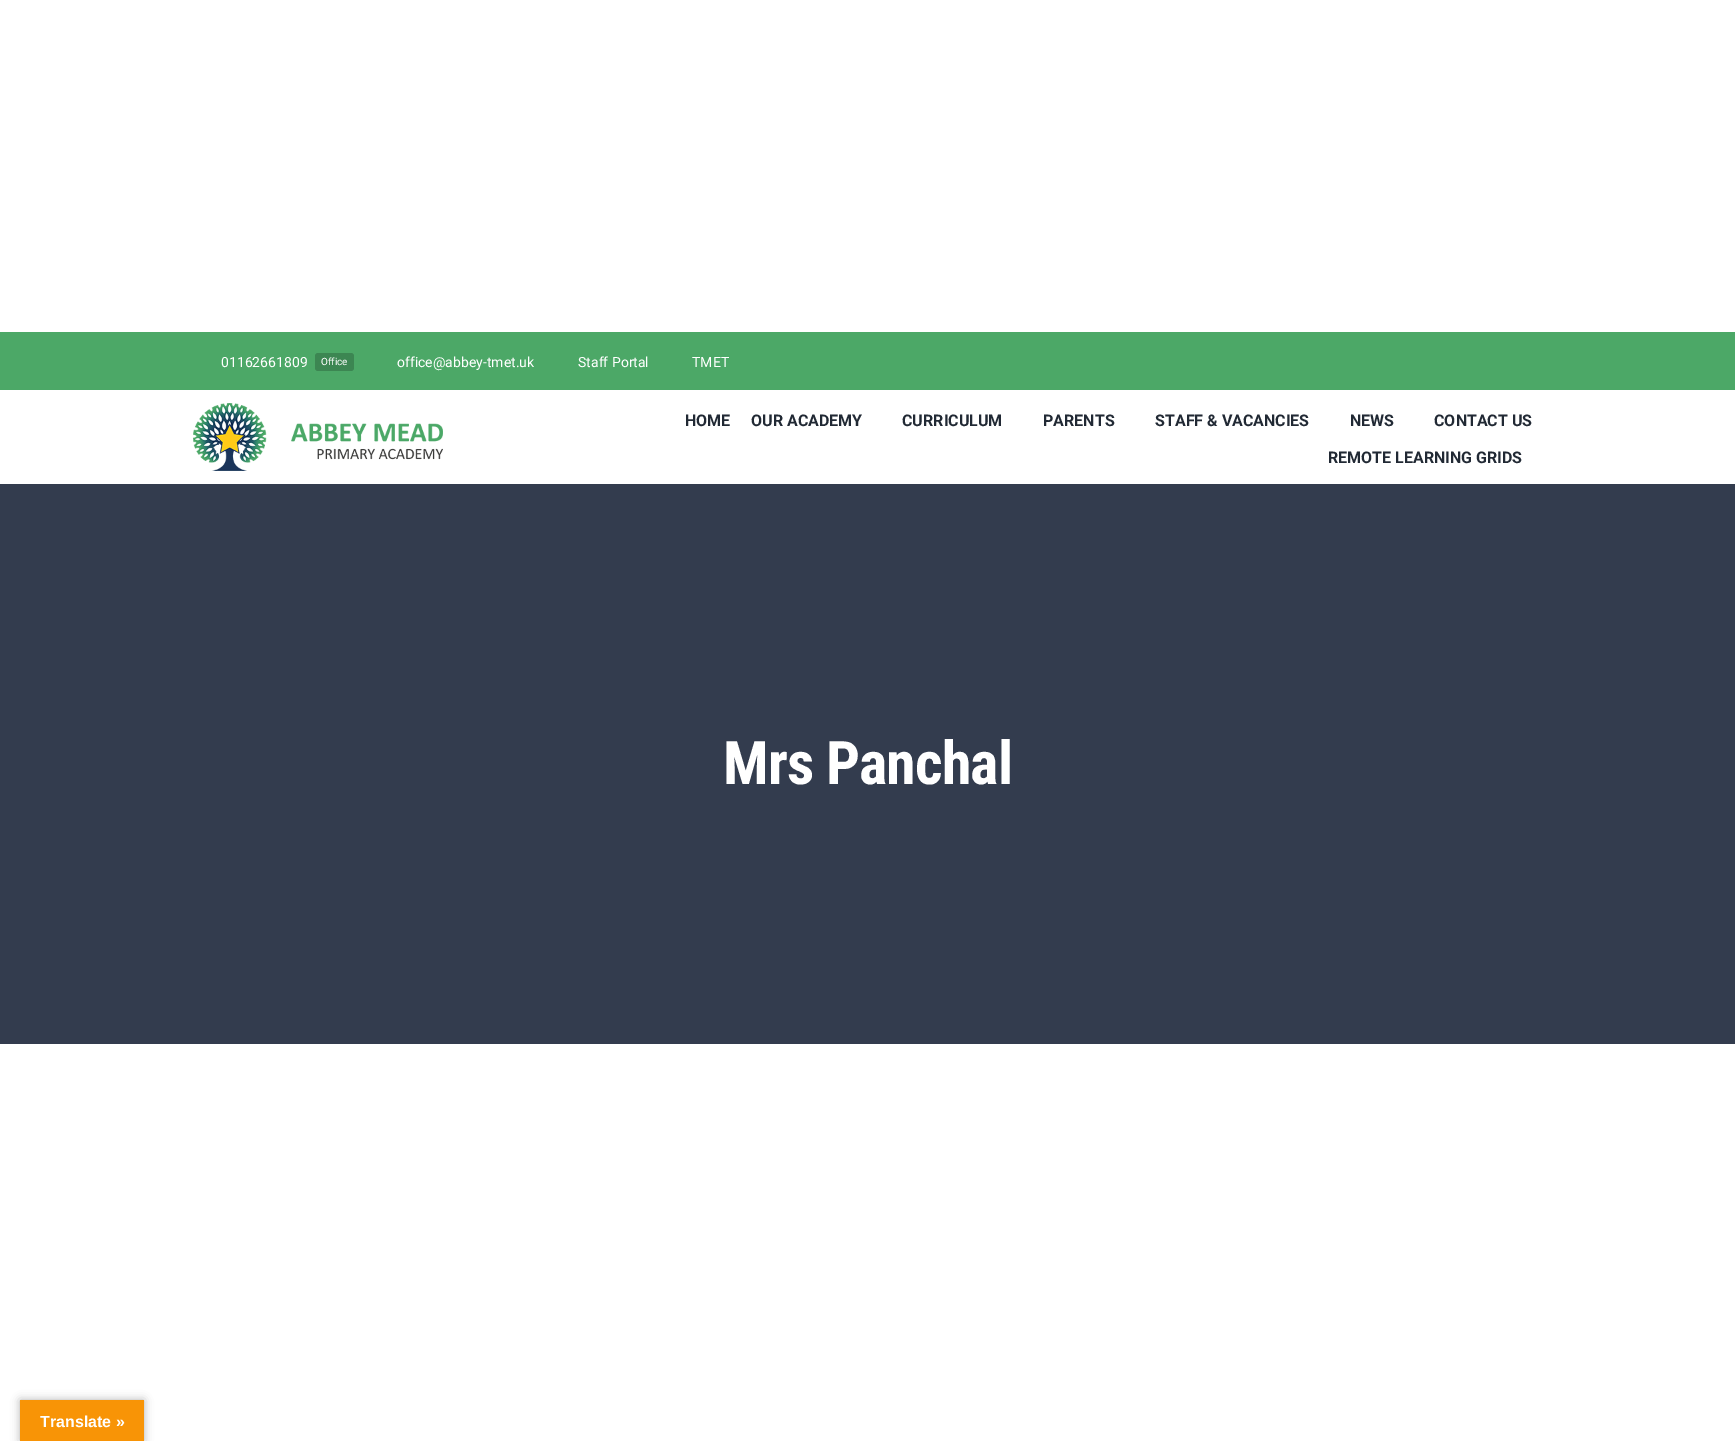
%!PS
<< /PageSize [1735 1441] /PageUsesTransparency true >> setpagedevice
/rgb { 3 { 255 div 3 1 roll } repeat setrgbcolor } def
/font { [ exch dup neg 0 0 3 -1 roll 0 0 ] selectfont } def
/text { moveto show } def
/alpha { dup .setfillconstantalpha .setstrokeconstantalpha } def
/roundrect { 5 dict begin { /r /h /w /y /x } { exch def } forall
  x r add y moveto x w add y 2 copy h add r arct x w add y h add x 1 index r arct
  x y h add x y r arct x y 2 copy exch w add exch r arct closepath end } def
/shadow { 12 dict begin { /a /b /q /h /w /y /x } { exch def } forall gsave /was 0 def
  9 -2 -9 { dup b mul 4 div /e exch def 1 sub .425 mul 2.718 exch exp 1 add a .99 .min exch div /now exch def
    1 1 now sub 1 was sub div sub alpha /was now def
    w h .min e 2 mul add 0 gt { x e sub y e sub w e 2 mul add h e 2 mul add
      q e add b .6 mul add w h .min 2 div e add .min 0 .max roundrect fill } if } for grestore end } def
/picture { 5 dict begin { /h /w /y /x /name } { exch def } forall
  gsave x y translate w h scale
  w h 8 [w 0 0 h 0 0] name (r) file false 3 colorimage grestore end } def
0 .pushpdf14devicefilter
0 1441 translate 1 -1 scale
4 setmiterlimit
255 255 255 rgb
0 0 1735 1441 rectfill
76 168 103 rgb
0 332 1735 58 rectfill
60 134 82 rgb
315 353 39 18 3 roundrect fill
(img_01.rgb) 193 403 250 68 picture
51 60 78 rgb
0 484 1735 560 rectfill
0 0 0 rgb
20 1400 124 41 0 4.5 0.3 shadow
248 148 6 rgb
20 1400 124 41 rectfill
/Roboto-Regular 14 font
255 255 255 rgb
(01162661809) 221 367 text
/Roboto-Regular 10 font
(Office) 321 365 text
/Roboto-Regular 14 font
(office@abbey-tmet.uk) 397 367 text
(Staff Portal) 578 367 text
(TMET) 692 367 text
/Roboto-Bold 16 font
33 41 52 rgb
(HOME) 685 426 text
(OUR ACADEMY) 751 426 text
(CURRICULUM) 902 426 text
(PARENTS) 1043 426 text
(STAFF & VACANCIES) 1155 426 text
(NEWS) 1350 426 text
(CONTACT US) 1434 426 text
(REMOTE LEARNING GRIDS) 1328 463 text
/RobotoCondensed-Bold 60 font
255 255 255 rgb
723 784 moveto -0.9 0 (Mrs Panchal) ashow
/LiberationSans-Bold 16 font
(Translate ») 40 1427 text
.poppdf14devicefilter showpage
